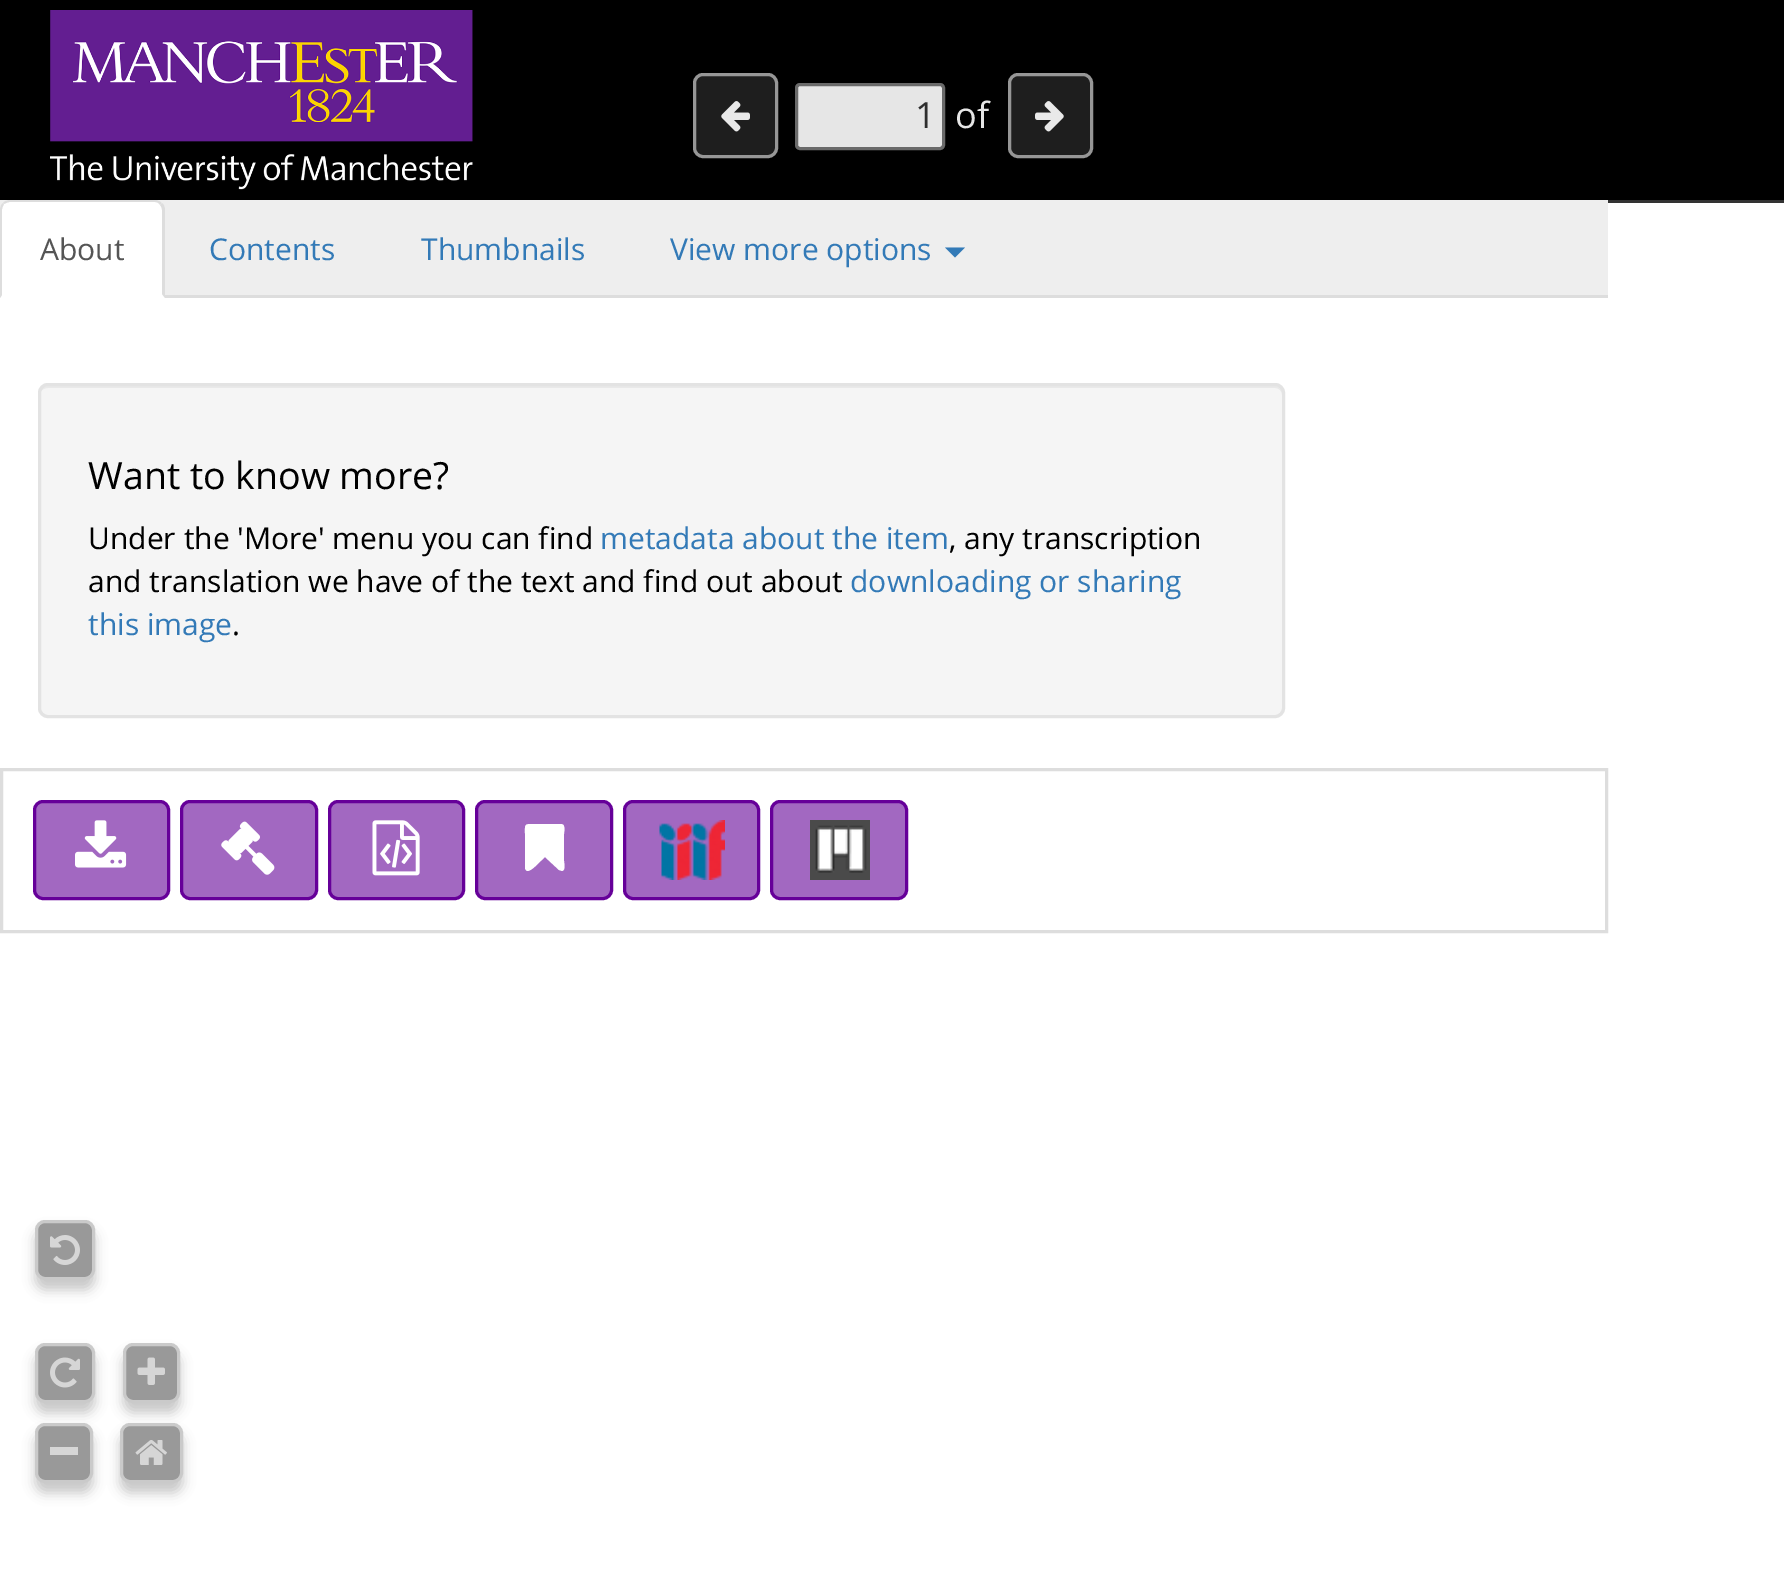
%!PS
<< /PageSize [1784 1584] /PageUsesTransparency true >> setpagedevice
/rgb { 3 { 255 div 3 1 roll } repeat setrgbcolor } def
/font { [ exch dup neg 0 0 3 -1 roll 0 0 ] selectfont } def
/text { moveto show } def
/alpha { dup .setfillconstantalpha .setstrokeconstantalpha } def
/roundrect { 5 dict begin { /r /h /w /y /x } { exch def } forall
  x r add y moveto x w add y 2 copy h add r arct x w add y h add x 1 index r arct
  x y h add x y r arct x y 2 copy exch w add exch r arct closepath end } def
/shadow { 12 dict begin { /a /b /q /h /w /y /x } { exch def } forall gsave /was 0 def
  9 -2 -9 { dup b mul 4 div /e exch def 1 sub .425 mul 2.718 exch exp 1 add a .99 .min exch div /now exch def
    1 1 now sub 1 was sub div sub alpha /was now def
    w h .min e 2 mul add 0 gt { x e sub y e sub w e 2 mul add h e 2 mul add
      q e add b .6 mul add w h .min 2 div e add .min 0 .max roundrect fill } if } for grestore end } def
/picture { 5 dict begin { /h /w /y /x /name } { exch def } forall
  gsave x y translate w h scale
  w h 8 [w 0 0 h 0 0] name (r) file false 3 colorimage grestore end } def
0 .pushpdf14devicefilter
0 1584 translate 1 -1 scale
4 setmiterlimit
255 255 255 rgb
0 0 1784 1584 rectfill
0 0 0 rgb
0 0 1784 200 rectfill
51 51 51 rgb
1608 200 176 3 rectfill
(img_01.rgb) 50 10 423 180 picture
30 30 30 rgb
694.5 74.5 82 82 8.5 roundrect gsave fill grestore
150 150 150 rgb
3 setlinewidth
stroke
(img_02.rgb) 721 101 29 31 picture
230 230 230 rgb
796.5 84.5 147 64 3.5 roundrect gsave fill grestore
106 106 106 rgb
stroke
30 30 30 rgb
1009.5 74.5 82 82 8.5 roundrect gsave fill grestore
150 150 150 rgb
stroke
(img_03.rgb) 1035 101 29 31 picture
238 238 238 rgb
0 200 1608 95 rectfill
221 221 221 rgb
165 295 1443 3 rectfill
255 255 255 rgb
10 200 moveto 145 0 rlineto 5.5 0 10 4.5 10 10 rcurveto 0 88 rlineto -165 0 rlineto 0 -88 rlineto 0 -5.5 4.5 -10 10 -10 rcurveto closepath fill
221 221 221 rgb
10 200 moveto -3 0 -6 1 -7 3 rcurveto 1 1 rlineto 2 -1 4 -2 6 -2 rcurveto 145 0 rlineto 2 0 4 1 5 3 rcurveto 2 -2 rlineto -2 -2 -4 -3 -7 -3 rcurveto closepath fill
165 298 moveto 0 -88 rlineto 0 -3 -1 -6 -3 -7 rcurveto -2 2 rlineto 1 1 2 3 2 5 rcurveto 0 84 rlineto closepath fill
0 298 moveto 2 -3 rlineto 0 -85 rlineto 0 -2 1 -4 2 -6 rcurveto -1 -1 rlineto -2 1 -3 4 -3 7 rcurveto closepath fill
51 122 183 rgb
945 247.5 moveto 20 0 rlineto -10 10 rlineto closepath fill
245 245 245 rgb
38 383 1247 335 10 roundrect fill
233 233 233 rgb
48 388 moveto 1227 0 rlineto 4 0 7 3 7 7 rcurveto 0 316 rlineto 1 -1 1 -3 1 -4 rcurveto 0 -314 rlineto 0 -4 -4 -8 -8 -8 rcurveto -1227 0 rlineto -4 0 -8 4 -8 8 rcurveto 0 2 rlineto 0 -4 3 -7 8 -7 rcurveto closepath fill
227 227 227 rgb
39.5 384.5 1244 332 8.5 roundrect stroke
221 221 221 rgb
1.5 769.5 1605 162 rectstroke
162 104 193 rgb
34.5 801.5 134 97 8.5 roundrect gsave fill grestore
102 0 153 rgb
stroke
(img_04.rgb) 75 820 52 48 picture
162 104 193 rgb
181.5 801.5 135 97 8.5 roundrect gsave fill grestore
102 0 153 rgb
stroke
(img_05.rgb) 221 821 54 54 picture
162 104 193 rgb
329.5 801.5 134 97 8.5 roundrect gsave fill grestore
102 0 153 rgb
stroke
(img_06.rgb) 372 820 48 56 picture
162 104 193 rgb
476.5 801.5 135 97 8.5 roundrect gsave fill grestore
102 0 153 rgb
stroke
255 255 255 rgb
561 824 moveto 5 0 3 8 3 10 rcurveto 0 27 rlineto 0 2 2 9 -2 10 rcurveto -3 -1 rlineto -14 -13 rlineto -7 6 -18 20 -20 11 rcurveto 0 -34 rlineto 0 -10 -1 -10 9 -10 rcurveto closepath fill
162 104 193 rgb
624.5 801.5 134 97 8.5 roundrect gsave fill grestore
102 0 153 rgb
stroke
(img_07.rgb) 659 820 66 60 picture
162 104 193 rgb
771.5 801.5 135 97 8.5 roundrect gsave fill grestore
102 0 153 rgb
stroke
(img_08.rgb) 810 820 60 60 picture
gsave
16 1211 moveto 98 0 rlineto 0 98 rlineto -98 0 rlineto closepath 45 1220 moveto 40 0 rlineto 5.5 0 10 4.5 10 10 rcurveto 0 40 rlineto 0 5.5 -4.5 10 -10 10 rcurveto -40 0 rlineto -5.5 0 -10 -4.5 -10 -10 rcurveto 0 -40 rlineto 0 -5.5 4.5 -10 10 -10 rcurveto closepath eoclip newpath
102 102 102 rgb
35 1230 60 60 10 6 0.35 shadow
grestore
0.8 alpha
127 127 127 rgb
36.5 1221.5 57 57 8.5 roundrect fill
1 alpha
202 202 202 rgb
36.5 1221.5 57 57 8.5 roundrect stroke
(img_09.rgb) 50 1235 30 30 picture
gsave
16 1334 moveto 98 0 rlineto 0 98 rlineto -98 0 rlineto closepath 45 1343 moveto 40 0 rlineto 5.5 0 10 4.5 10 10 rcurveto 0 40 rlineto 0 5.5 -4.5 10 -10 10 rcurveto -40 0 rlineto -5.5 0 -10 -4.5 -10 -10 rcurveto 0 -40 rlineto 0 -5.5 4.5 -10 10 -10 rcurveto closepath eoclip newpath
102 102 102 rgb
35 1353 60 60 10 6 0.35 shadow
grestore
0.8 alpha
127 127 127 rgb
36.5 1344.5 57 57 8.5 roundrect fill
1 alpha
202 202 202 rgb
36.5 1344.5 57 57 8.5 roundrect stroke
(img_10.rgb) 50 1357 30 31 picture
gsave
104 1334 moveto 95 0 rlineto 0 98 rlineto -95 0 rlineto closepath 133 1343 moveto 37 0 rlineto 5.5 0 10 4.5 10 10 rcurveto 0 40 rlineto 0 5.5 -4.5 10 -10 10 rcurveto -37 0 rlineto -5.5 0 -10 -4.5 -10 -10 rcurveto 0 -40 rlineto 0 -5.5 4.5 -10 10 -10 rcurveto closepath eoclip newpath
102 102 102 rgb
123 1353 57 60 10 6 0.35 shadow
grestore
0.8 alpha
127 127 127 rgb
124.5 1344.5 54 57 8.5 roundrect fill
1 alpha
202 202 202 rgb
124.5 1344.5 54 57 8.5 roundrect stroke
(img_11.rgb) 137 1357 28 28 picture
gsave
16 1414 moveto 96 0 rlineto 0 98 rlineto -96 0 rlineto closepath 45 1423 moveto 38 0 rlineto 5.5 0 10 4.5 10 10 rcurveto 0 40 rlineto 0 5.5 -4.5 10 -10 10 rcurveto -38 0 rlineto -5.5 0 -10 -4.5 -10 -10 rcurveto 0 -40 rlineto 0 -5.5 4.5 -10 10 -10 rcurveto closepath eoclip newpath
102 102 102 rgb
35 1433 58 60 10 6 0.35 shadow
grestore
0.8 alpha
127 127 127 rgb
36.5 1424.5 55 57 8.5 roundrect fill
1 alpha
202 202 202 rgb
36.5 1424.5 55 57 8.5 roundrect stroke
214 214 214 rgb
50 1447 28 8 rectfill
gsave
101 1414 moveto 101 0 rlineto 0 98 rlineto -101 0 rlineto closepath 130 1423 moveto 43 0 rlineto 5.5 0 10 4.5 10 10 rcurveto 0 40 rlineto 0 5.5 -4.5 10 -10 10 rcurveto -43 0 rlineto -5.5 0 -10 -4.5 -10 -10 rcurveto 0 -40 rlineto 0 -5.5 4.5 -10 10 -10 rcurveto closepath eoclip newpath
102 102 102 rgb
120 1433 63 60 10 6 0.35 shadow
grestore
0.8 alpha
127 127 127 rgb
121.5 1424.5 60 57 8.5 roundrect fill
1 alpha
202 202 202 rgb
121.5 1424.5 60 57 8.5 roundrect stroke
(img_12.rgb) 135 1440 32 25 picture
/OpenSans-Regular 36 font
46 46 46 rgb
(1) 915 128 text
230 230 230 rgb
(of) 955 128 text
/OpenSans-Regular 30 font
85 85 85 rgb
(About) 40 260 text
51 122 183 rgb
(Contents) 209 260 text
(Thumbnails) 421 260 text
(View more options) 670 260 text
/OpenSans-Regular 37.5 font
0 0 0 rgb
(Want to know more?) 88 489 text
/OpenSans-Regular 30 font
(Under the 'More' menu you can find) 88 549 text
51 122 183 rgb
(metadata about the item) 600 549 text
0 0 0 rgb
(, any transcription) 949 549 text
(and translation we have of the text and find out about) 88 592 text
51 122 183 rgb
(downloading or sharing) 850 592 text
(this image) 88 635 text
0 0 0 rgb
(.) 232 635 text
.poppdf14devicefilter showpage
